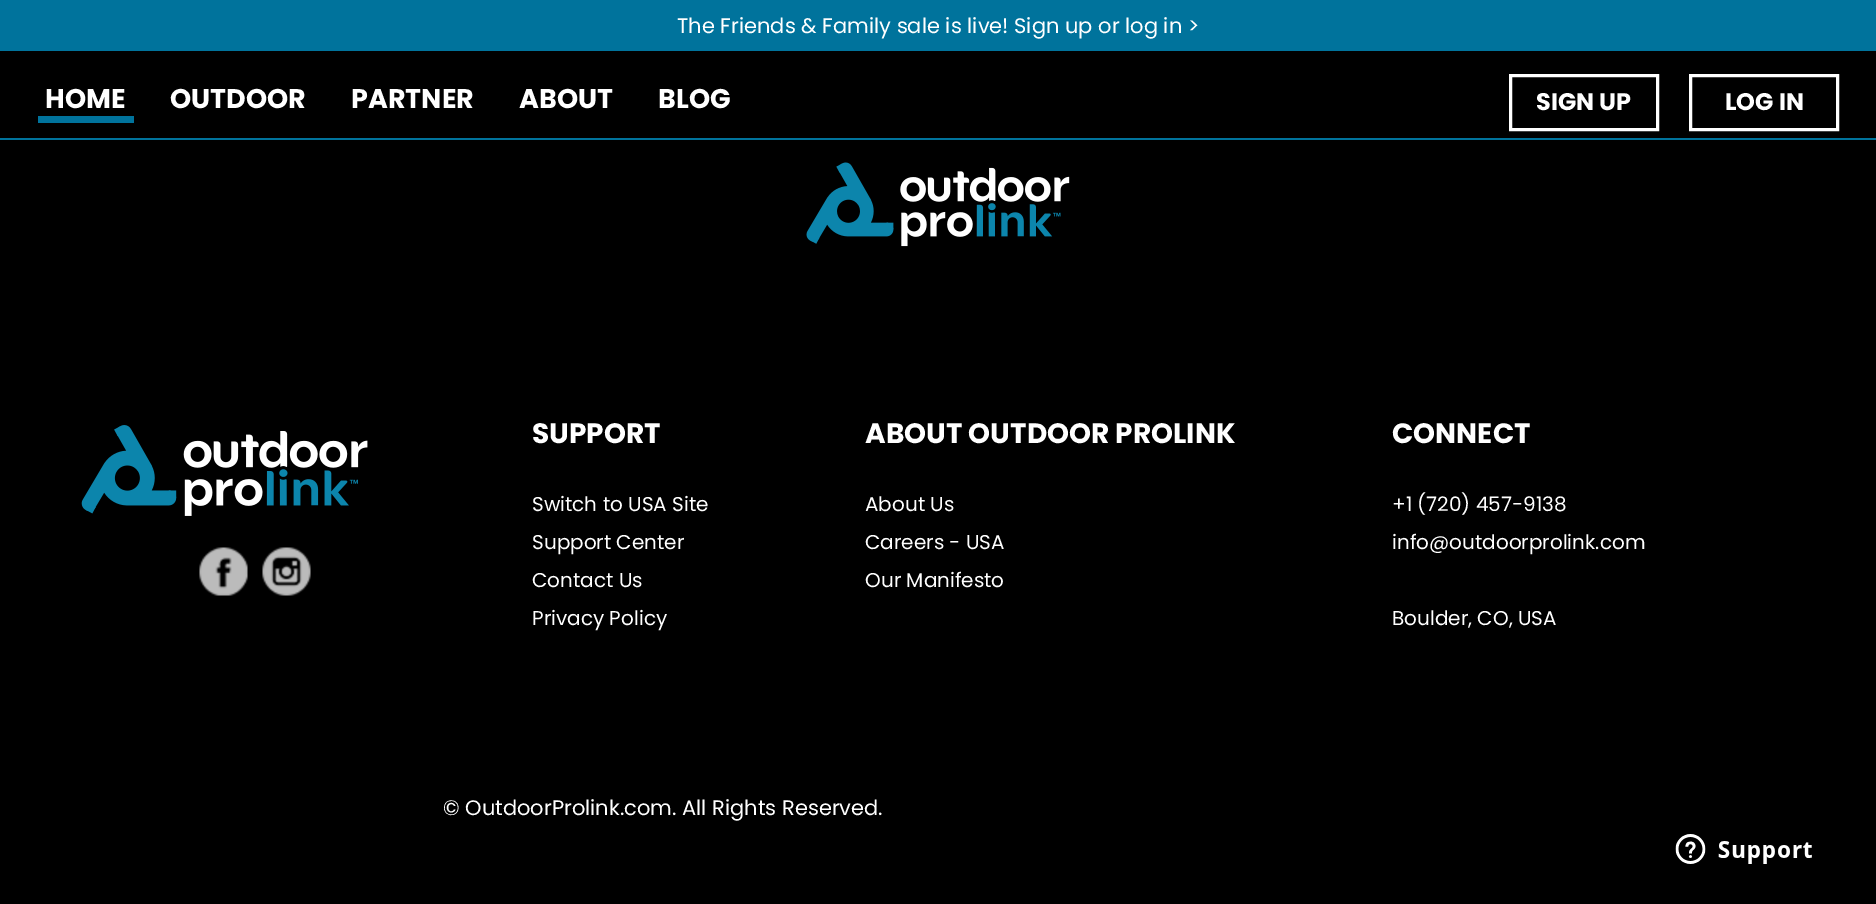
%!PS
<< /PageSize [1876 904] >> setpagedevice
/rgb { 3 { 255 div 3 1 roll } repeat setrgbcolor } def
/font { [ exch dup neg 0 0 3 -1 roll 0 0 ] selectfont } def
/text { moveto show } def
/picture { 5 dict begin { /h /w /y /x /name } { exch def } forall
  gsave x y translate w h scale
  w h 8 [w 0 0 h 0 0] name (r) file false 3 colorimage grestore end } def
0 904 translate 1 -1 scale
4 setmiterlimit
0 0 0 rgb
0 0 1876 904 rectfill
0 115 156 rgb
0 0 1876 51 rectfill
0 138 1876 2 rectfill
38 116 96 7 rectfill
255 255 255 rgb
3 setlinewidth
1510.5 75.5 147 54 rectstroke
1690.5 75.5 147 54 rectstroke
(img_01.rgb) 806 162 264 85 picture
(img_02.rgb) 81 425 287 91 picture
(img_03.rgb) 199 547 49 49 picture
(img_04.rgb) 262 547 49 49 picture
(img_05.rgb) 1675 834 137 30 picture
/Poppins-Regular 21 font
(The Friends & Family sale is live! Sign up or log in >) 677 33 text
/Poppins-Bold 27 font
(HOME) 45 108 text
(OUTDOOR) 170 108 text
(PARTNER) 351 108 text
(ABOUT) 519 108 text
(BLOG) 658 108 text
/Poppins-Bold 24 font
(SIGN UP) 1536 110 text
(LOG IN) 1725 110 text
/Poppins-Bold 28 font
(SUPPORT) 532 443 text
/Poppins-Regular 20 font
(Switch to USA Site) 532 511 text
(Support Center) 532 549 text
(Contact Us) 532 587 text
(Privacy Policy) 532 625 text
/Poppins-Bold 28 font
(ABOUT OUTDOOR PROLINK) 865 443 text
/Poppins-Regular 20 font
(About Us) 865 511 text
(Careers - USA) 865 549 text
(Our Manifesto) 865 587 text
/Poppins-Bold 28 font
(CONNECT) 1392 443 text
/Poppins-Regular 20 font
(+1 \(720\) 457-9138) 1392 511 text
(info@outdoorprolink.com) 1392 549 text
(Boulder, CO, USA) 1392 625 text
/Poppins-Regular 21 font
(© OutdoorProlink.com. All Rights Reserved.) 443 815 text
showpage
